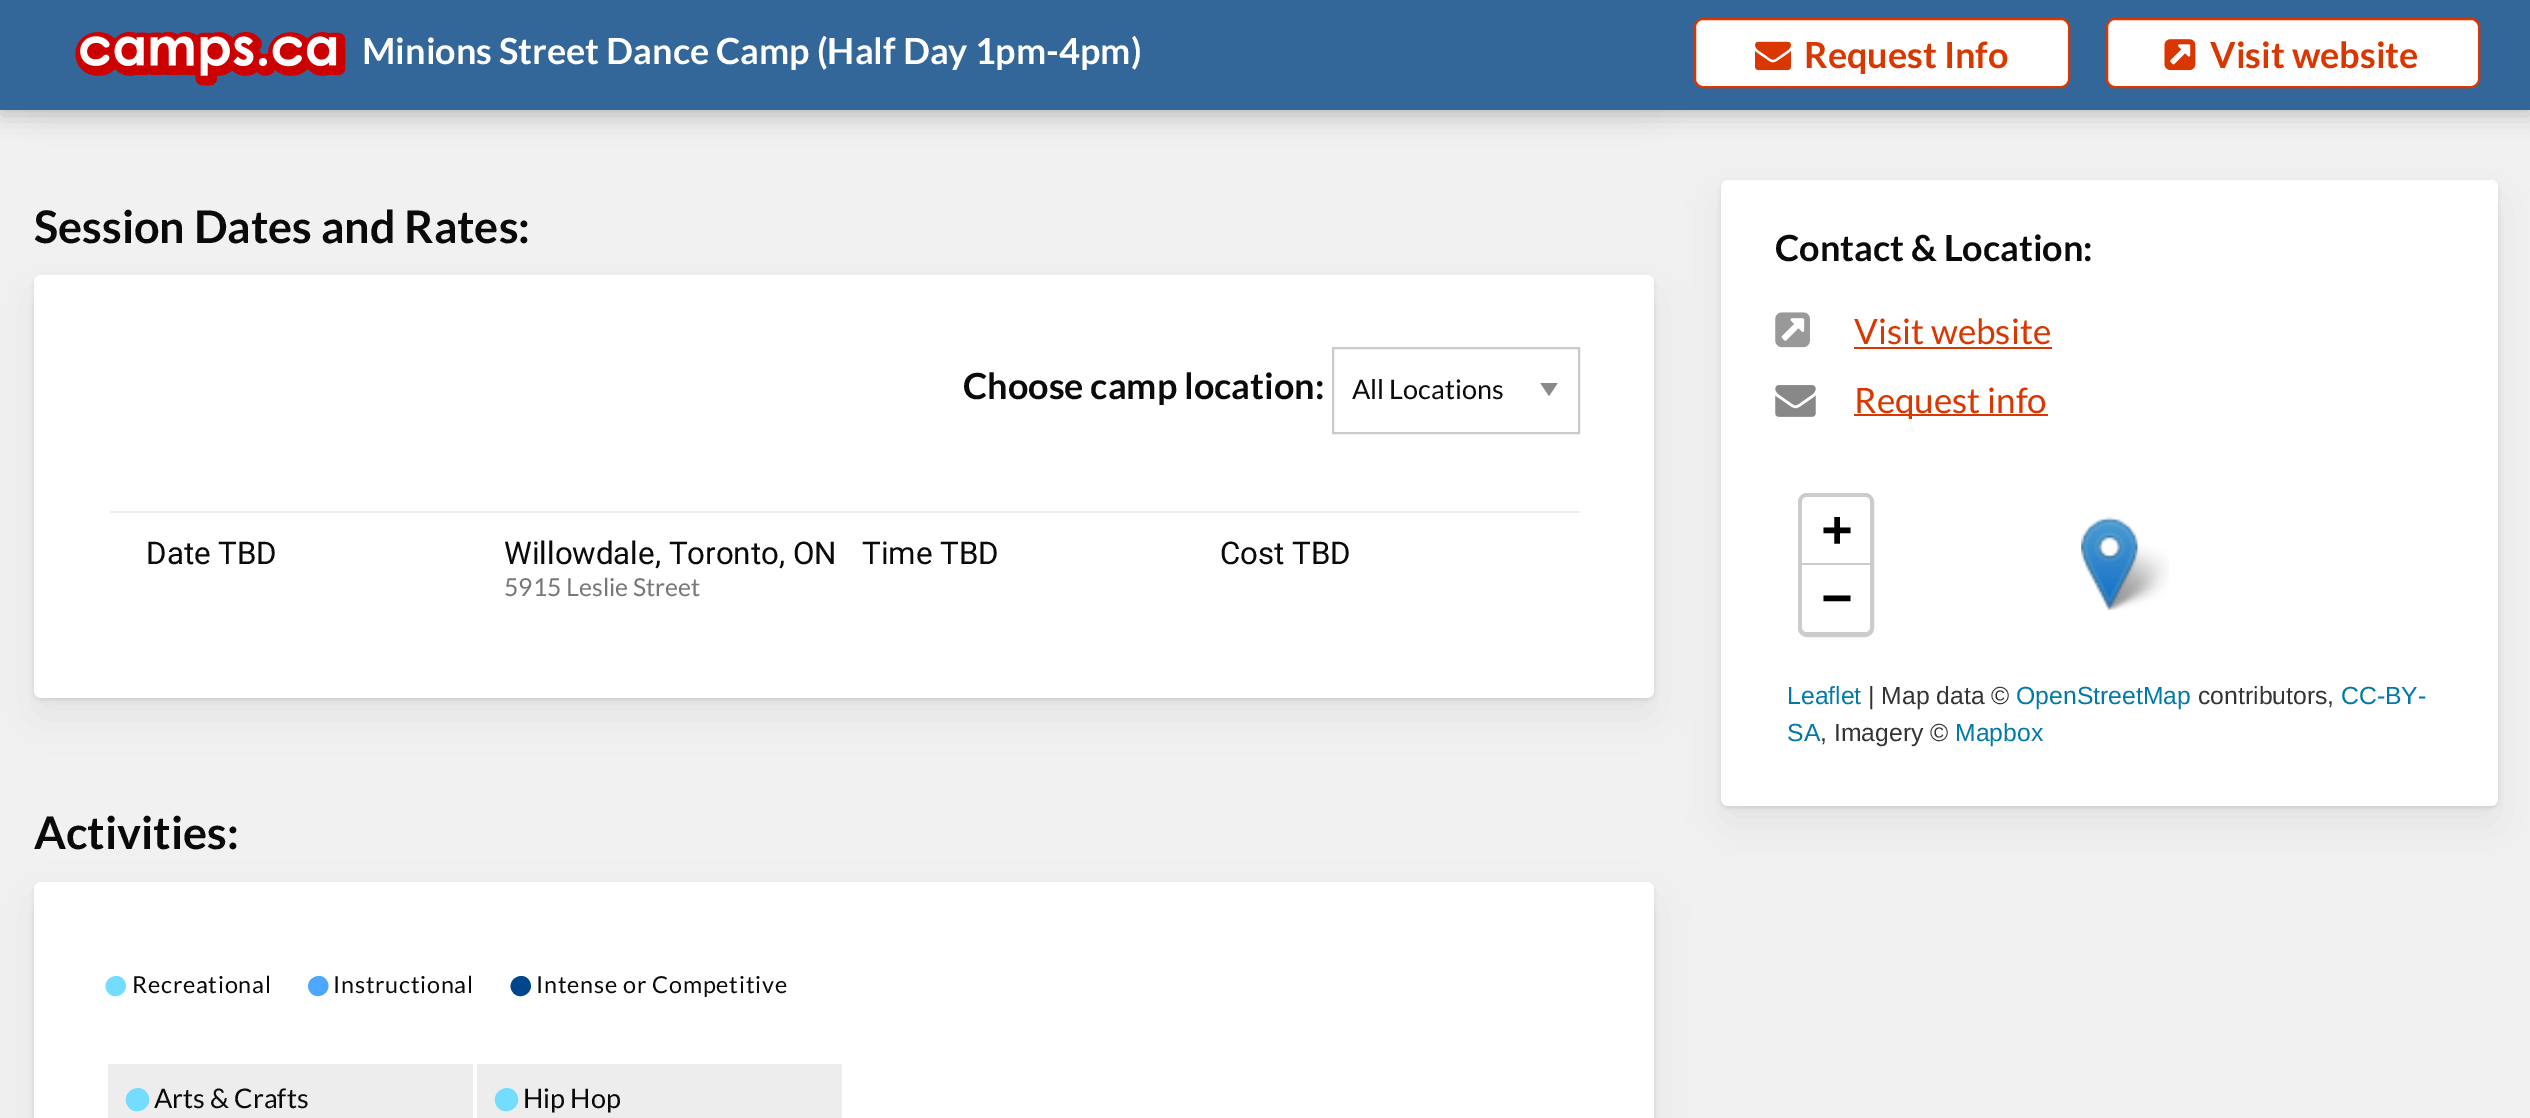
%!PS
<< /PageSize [2530 1118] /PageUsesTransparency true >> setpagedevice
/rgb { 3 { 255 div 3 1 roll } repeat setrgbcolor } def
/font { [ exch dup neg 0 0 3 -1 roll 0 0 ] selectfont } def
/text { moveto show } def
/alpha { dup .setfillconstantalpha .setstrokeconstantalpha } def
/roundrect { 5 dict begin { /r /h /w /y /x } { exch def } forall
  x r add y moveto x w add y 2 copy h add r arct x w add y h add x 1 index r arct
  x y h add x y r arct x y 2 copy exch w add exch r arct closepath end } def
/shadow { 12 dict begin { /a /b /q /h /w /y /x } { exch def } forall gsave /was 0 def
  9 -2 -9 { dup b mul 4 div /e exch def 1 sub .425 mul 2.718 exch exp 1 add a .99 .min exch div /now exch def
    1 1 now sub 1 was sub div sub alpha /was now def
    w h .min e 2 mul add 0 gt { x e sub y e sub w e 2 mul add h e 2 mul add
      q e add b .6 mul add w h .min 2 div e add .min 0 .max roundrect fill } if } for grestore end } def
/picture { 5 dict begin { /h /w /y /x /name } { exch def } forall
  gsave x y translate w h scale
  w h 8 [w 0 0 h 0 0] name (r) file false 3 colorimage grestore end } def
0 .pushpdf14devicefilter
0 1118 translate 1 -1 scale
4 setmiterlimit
241 241 241 rgb
0 0 2530 1118 rectfill
0 0 0 rgb
0 5 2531 110 0 11 0.2 shadow
34 -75 1620 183 7 22.5 0.05 shadow
51 102 153 rgb
0 0 2530 110 rectfill
(img_01.rgb) 75 31 271 55 picture
255 255 255 rgb
1695 19 374 68 8 roundrect gsave fill grestore
217 54 0 rgb
2 setlinewidth
stroke
(img_02.rgb) 1755 41 36 30 picture
255 255 255 rgb
2107 19 372 68 8 roundrect gsave fill grestore
217 54 0 rgb
stroke
(img_03.rgb) 2164 39 32 32 picture
0 0 0 rgb
34 293 1620 423 7 22.5 0.05 shadow
34 277 1620 423 7 2 0.1 shadow
255 255 255 rgb
34 275 1620 423 7 roundrect fill
gsave
1539 383 20 13 rectclip
138 138 138 rgb
1540 382.5 moveto 18 0 rlineto -9 13.5 rlineto closepath fill
grestore
202 202 202 rgb
1333 348 246 85 rectstroke
238 238 238 rgb
110 511 1470 2 rectfill
0 0 0 rgb
34 900 1620 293 7 22.5 0.05 shadow
34 884 1620 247 7 2 0.1 shadow
255 255 255 rgb
34 882 1620 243 7 roundrect fill
115 220 255 rgb
124.5 981 moveto 6.5 11.5 -11 21.5 -17.5 10 rcurveto -6.5 -11 11 -21.5 17.5 -10 rcurveto closepath fill
77 166 255 rgb
327 981 moveto 6.5 11.5 -11 21.5 -17.5 10 rcurveto -6.5 -11 11 -21.5 17.5 -10 rcurveto closepath fill
0 70 140 rgb
529.5 981 moveto 6.5 11.5 -11 21.5 -17.5 10 rcurveto -6.5 -11 11 -21.5 17.5 -10 rcurveto closepath fill
237 237 237 rgb
108 1064 365 54 rectfill
115 220 255 rgb
147.5 1094 moveto 7.5 13 -12.5 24.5 -20 11.5 rcurveto -7.5 -13 12.5 -25 20 -11.5 rcurveto closepath fill
237 237 237 rgb
477 1064 365 54 rectfill
115 220 255 rgb
516.5 1094 moveto 7.5 13 -12.5 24.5 -20 11.5 rcurveto -7.5 -13 12.5 -25 20 -11.5 rcurveto closepath fill
0 0 0 rgb
1721 198 777 626 7 22.5 0.05 shadow
1721 182 777 626 7 2 0.1 shadow
255 255 255 rgb
1721 180 777 626 7 roundrect fill
(img_04.rgb) 1775 312 35 36 picture
217 54 0 rgb
1854 347 198 2 rectfill
(img_05.rgb) 1775 385 41 32 picture
1854 414 194 2 rectfill
204 204 204 rgb
5 setlinewidth
1800.5 495.5 71 139 6.5 roundrect stroke
255 255 255 rgb
1807 497 moveto 58 0 rlineto 3 0 5 2 5 5 rcurveto 0 63 rlineto -68 0 rlineto 0 -63 rlineto 0 -3 2 -5 5 -5 rcurveto closepath fill
204 204 204 rgb
1802 563 68 2 rectfill
255 255 255 rgb
1802 565 moveto 68 0 rlineto 0 62 rlineto 0 3 -2 5 -5 5 rcurveto -58 0 rlineto -3 0 -5 -2 -5 -5 rcurveto closepath fill
(img_07.rgb) 2102 546 67 64 picture
(img_06.rgb) 2081 517 58 94 picture
/Lato-Bold 36 font
(Minions Street Dance Camp \(Half Day 1pm-4pm\)) 362 64 text
217 54 0 rgb
(Request Info) 1804 68 text
(Visit website) 2210 68 text
/Lato-Bold 45 font
10 10 10 rgb
(Session Dates and Rates:) 34 243 text
/Lato-Bold 36 font
(Choose camp location:) 963 399 text
/Lato-Regular 27 font
(All Locations) 1352 399 text
/Roboto-Regular 31.25 font
(Date TBD) 146 564 text
(Willowdale, Toronto, ON) 504 564 text
/Lato-Regular 24.75 font
119 119 119 rgb
(5915 Leslie Street) 504 596 text
/Roboto-Regular 31.25 font
10 10 10 rgb
(Time TBD) 862 564 text
(Cost TBD) 1220 564 text
/Lato-Bold 45 font
(Activities:) 34 849 text
/Lato-Regular 23.4 font
132 993 moveto 0.75 0 (Recreational) ashow
333 993 moveto 0.75 0 (Instructional) ashow
536 993 moveto 0.75 0 (Intense or Competitive) ashow
/Lato-Regular 27 font
(Arts & Crafts) 154 1108 text
(Hip Hop) 523 1108 text
/Lato-Bold 36 font
(Contact & Location:) 1775 261 text
/Lato-Regular 35 font
217 54 0 rgb
(Visit website) 1854 344 text
(Request info) 1854 413 text
/DejaVuSansMono-Bold 50 font
0 0 0 rgb
(+) 1822 546 text
(−) 1822 614 text
/LiberationSans-Regular 24.75 font
0 120 168 rgb
(Leaflet) 1787 704 text
51 51 51 rgb
(| Map data ©) 1868 704 text
0 120 168 rgb
(OpenStreetMap) 2016 704 text
51 51 51 rgb
(contributors,) 2198 704 text
0 120 168 rgb
(CC-BY-) 2341 704 text
(SA) 1787 741 text
51 51 51 rgb
(, Imagery ©) 1820 741 text
0 120 168 rgb
(Mapbox) 1955 741 text
.poppdf14devicefilter showpage
